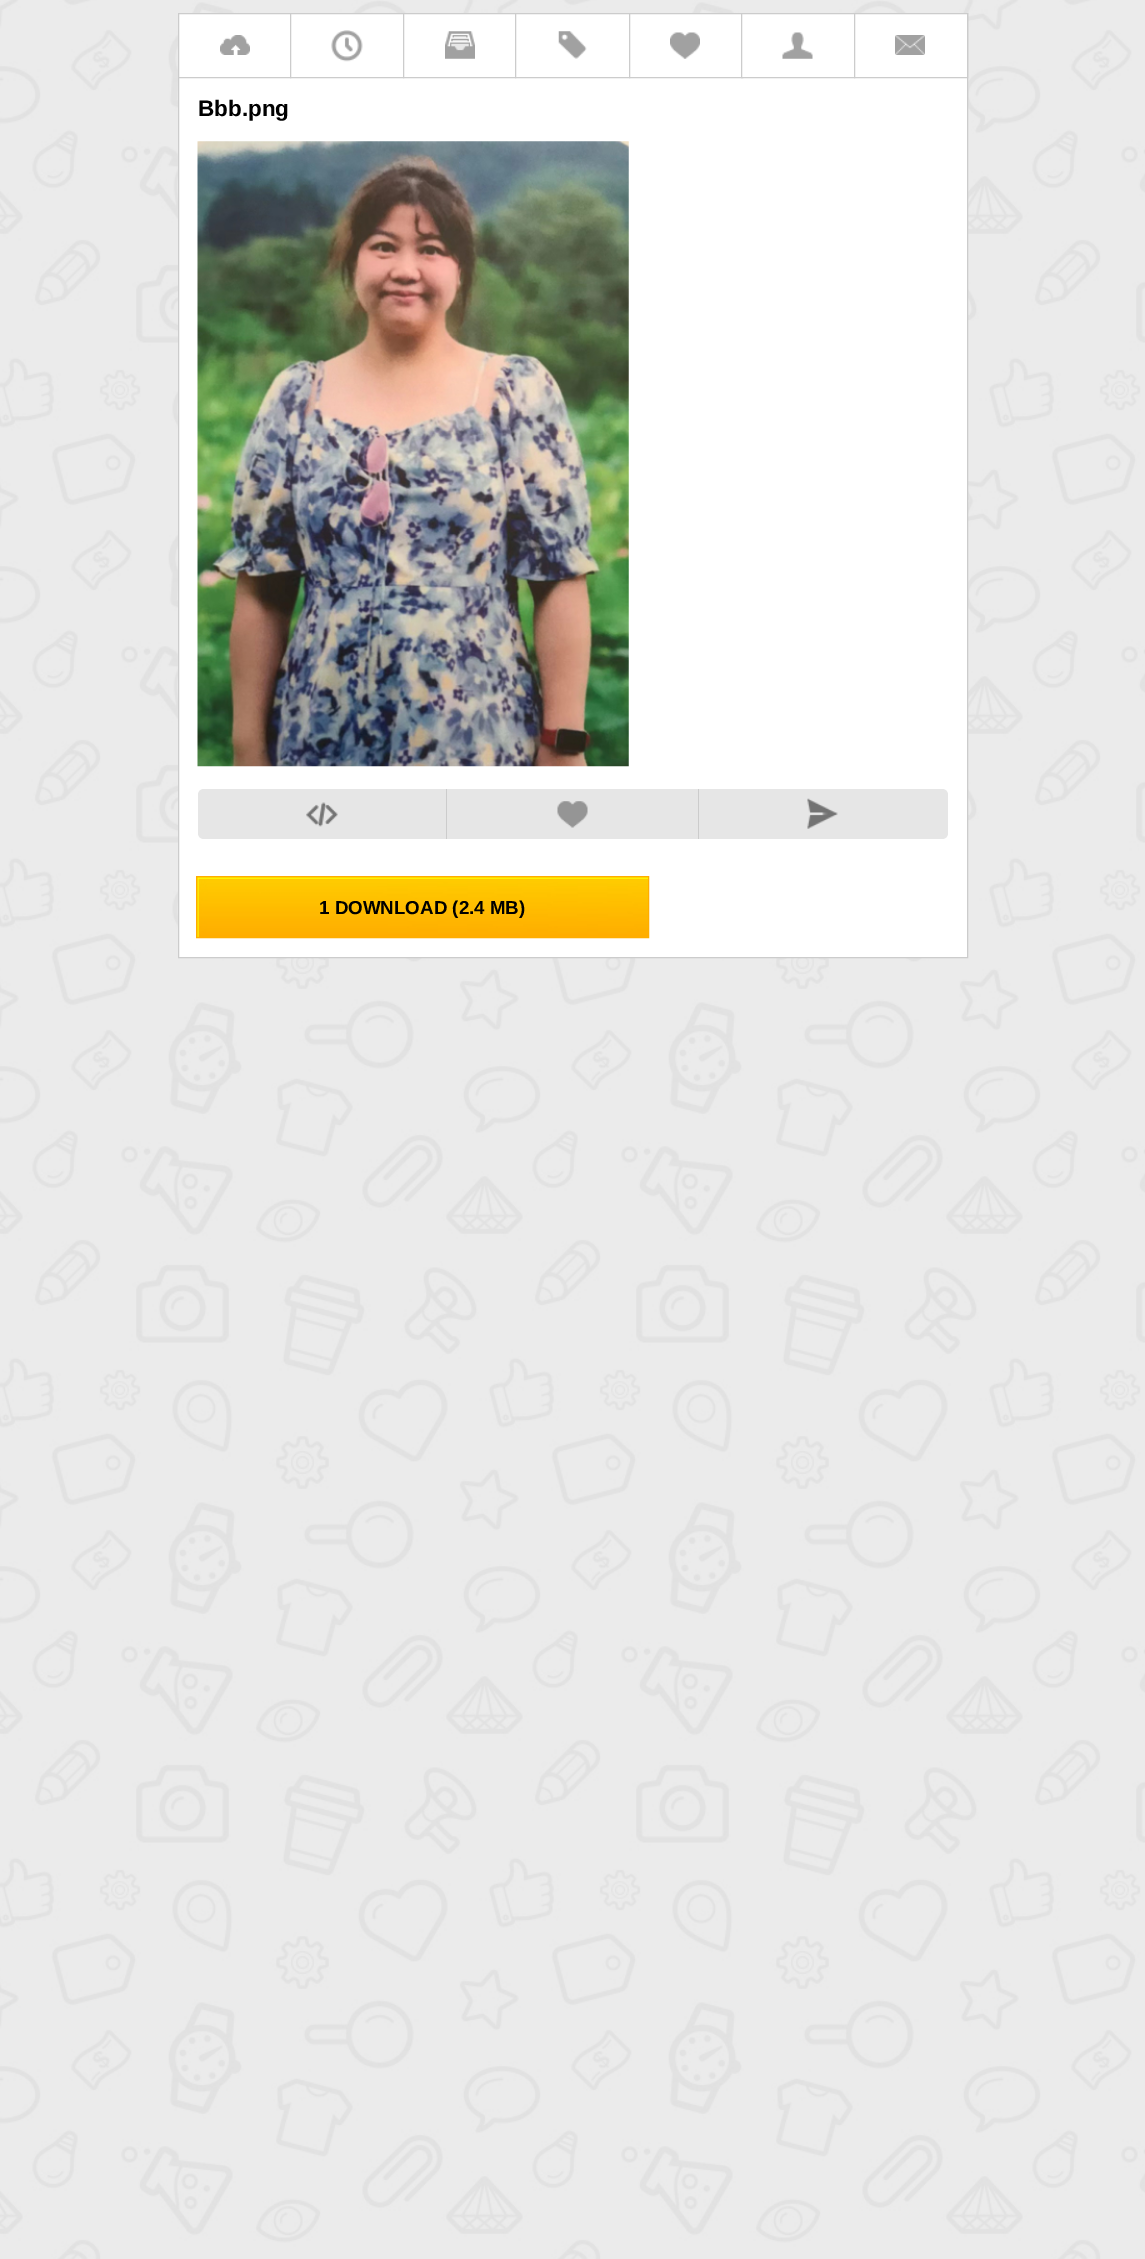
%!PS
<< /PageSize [1145 2259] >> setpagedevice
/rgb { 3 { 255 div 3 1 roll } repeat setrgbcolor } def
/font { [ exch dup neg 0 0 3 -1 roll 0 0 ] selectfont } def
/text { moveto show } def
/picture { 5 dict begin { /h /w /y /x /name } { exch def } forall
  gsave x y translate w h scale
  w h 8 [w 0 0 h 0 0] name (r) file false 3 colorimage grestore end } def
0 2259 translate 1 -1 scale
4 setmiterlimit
255 255 255 rgb
0 0 1145 2259 rectfill
(img_01.rgb) 0 0 1145 2259 picture
179 78 788 879 rectfill
204 204 204 rgb
178.5 13.5 789 944 rectstroke
255 255 255 rgb
178.5 13.5 moveto 112 0 rlineto 0 64 rlineto -112 0 rlineto closepath gsave fill grestore
204 204 204 rgb
stroke
(img_02.rgb) 220 35 30 20 picture
255 255 255 rgb
290.5 13.5 moveto 113 0 rlineto 0 64 rlineto -113 0 rlineto closepath gsave fill grestore
204 204 204 rgb
stroke
(img_03.rgb) 331 30 32 32 picture
255 255 255 rgb
403.5 13.5 moveto 112 0 rlineto 0 64 rlineto -112 0 rlineto closepath gsave fill grestore
204 204 204 rgb
stroke
(img_04.rgb) 445 31 30 28 picture
255 255 255 rgb
515.5 13.5 moveto 114 0 rlineto 0 64 rlineto -114 0 rlineto closepath gsave fill grestore
204 204 204 rgb
stroke
(img_05.rgb) 558 31 29 28 picture
255 255 255 rgb
630 14 111 63 rectfill
204 204 204 rgb
629.5 13.5 113 64 rectstroke
(img_06.rgb) 670 32 30 27 picture
255 255 255 rgb
741.5 13.5 moveto 113 0 rlineto 0 64 rlineto -113 0 rlineto closepath gsave fill grestore
204 204 204 rgb
stroke
(img_07.rgb) 782 32 31 27 picture
255 255 255 rgb
854.5 13.5 moveto 113 0 rlineto 0 64 rlineto -113 0 rlineto closepath gsave fill grestore
204 204 204 rgb
stroke
(img_08.rgb) 895 35 30 20 picture
(img_09.rgb) 197 141 432 626 picture
230 230 230 rgb
204 789 moveto 242 0 rlineto 0 50 rlineto -242 0 rlineto -3.5 0 -6 -2.5 -6 -6 rcurveto 0 -38 rlineto 0 -3.5 2.5 -6 6 -6 rcurveto closepath fill
(img_10.rgb) 306 802 32 25 picture
447 789 251 50 rectfill
(img_11.rgb) 557 801 31 27 picture
204 204 204 rgb
446 789 1 50 rectfill
230 230 230 rgb
698 789 moveto 244 0 rlineto 3.5 0 6 2.5 6 6 rcurveto 0 38 rlineto 0 3.5 -2.5 6 -6 6 rcurveto -244 0 rlineto closepath fill
(img_12.rgb) 807 798 31 31 picture
204 204 204 rgb
698 789 1 50 rectfill
255 204 0 rgb
197 877 451 60 rectfill
(img_13.rgb) 197 877 451 60 picture
255 173 0 rgb
196.5 876.5 452 61 rectstroke
/LiberationSans-Bold 22.5 font
0 0 0 rgb
(Bbb.png) 198 116 text
/LiberationSans-Bold 18.75 font
(1 DOWNLOAD \(2.4 MB\)) 319 914 text
showpage
